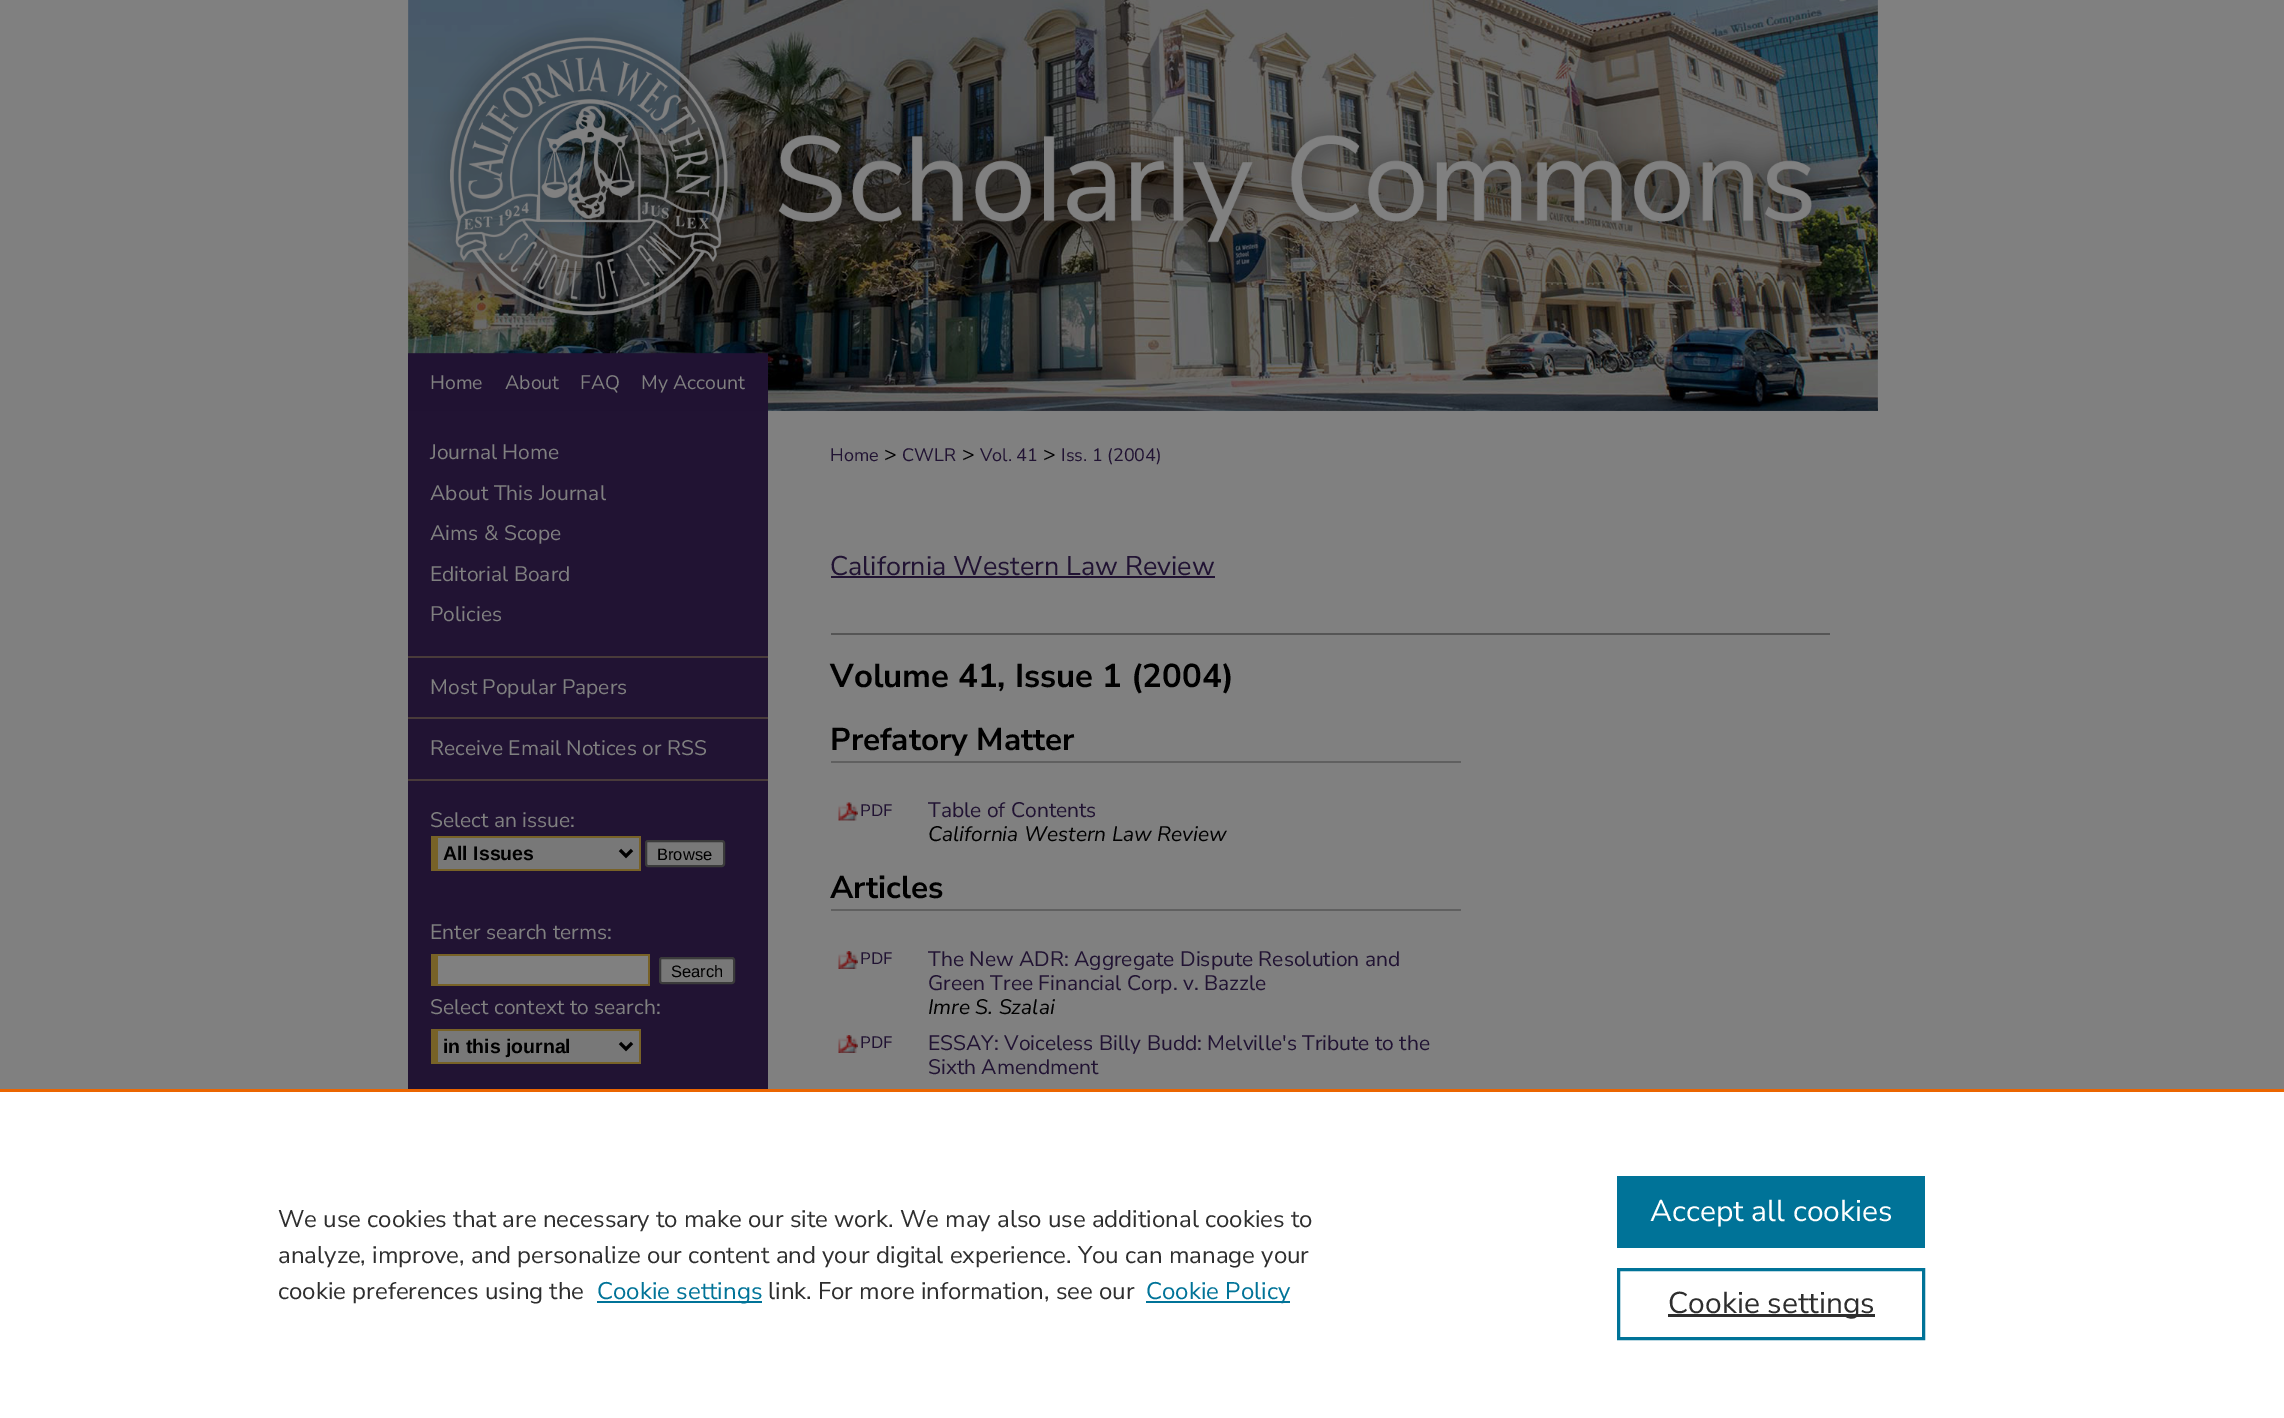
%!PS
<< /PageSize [2284 1418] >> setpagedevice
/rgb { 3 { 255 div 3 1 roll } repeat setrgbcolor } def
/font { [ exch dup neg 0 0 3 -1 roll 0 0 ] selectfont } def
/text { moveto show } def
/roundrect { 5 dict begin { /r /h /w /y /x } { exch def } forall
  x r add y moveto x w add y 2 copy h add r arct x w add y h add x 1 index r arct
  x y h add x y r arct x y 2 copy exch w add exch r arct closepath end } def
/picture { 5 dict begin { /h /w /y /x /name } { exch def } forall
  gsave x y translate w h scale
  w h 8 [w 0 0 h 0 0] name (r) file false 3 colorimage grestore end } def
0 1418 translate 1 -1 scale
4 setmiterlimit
128 128 128 rgb
0 0 2284 1418 rectfill
(img_01.rgb) 408 0 1470 411 picture
33 19 51 rgb
408 411 360 678 rectfill
73 59 58 rgb
408 656 360 2 rectfill
408 717 360 2 rectfill
408 779 360 2 rectfill
120 120 120 rgb
438 838 201 31 rectfill
120 98 39 rgb
431 836 210 2 rectfill
639 836 2 34 rectfill
431 869 210 2 rectfill
431 836 7 34 rectfill
0 0 0 rgb
3 setlinewidth
620 850 moveto 6 6 rlineto 6 -6 rlineto stroke
120 120 120 rgb
646 841 78 25 2 roundrect gsave fill grestore
59 59 59 rgb
2 setlinewidth
stroke
128 128 128 rgb
438 956 210 28 rectfill
120 98 39 rgb
431 954 219 2 rectfill
648 954 2 32 rectfill
431 984 219 2 rectfill
431 954 7 32 rectfill
120 120 120 rgb
660 958 74 25 2 roundrect gsave fill grestore
59 59 59 rgb
stroke
120 120 120 rgb
438 1031 201 31 rectfill
120 98 39 rgb
431 1029 210 2 rectfill
639 1029 2 35 rectfill
431 1062 210 2 rectfill
431 1029 7 35 rectfill
0 0 0 rgb
3 setlinewidth
620 1043 moveto 6 6 rlineto 6 -6 rlineto stroke
33 19 51 rgb
831 576 384 2 rectfill
85 85 85 rgb
831 633 999 2 rectfill
96 96 96 rgb
831 761 630 2 rectfill
(img_02.rgb) 838 802 20 19 picture
831 909 630 2 rectfill
(img_03.rgb) 838 951 20 18 picture
(img_03.rgb) 838 1035 20 18 picture
255 255 255 rgb
0 1092 2284 326 rectfill
235 101 0 rgb
0 1089 2284 3 rectfill
0 115 152 rgb
597 1301 165 2 rectfill
1146 1301 144 2 rectfill
1617 1176 308 72 rectfill
1618.5 1269.5 305 69 rectstroke
46 46 46 rgb
1668 1314 207 3 rectfill
/NunitoSans-Regular 19.5 font
128 128 128 rgb
(Home) 430 389 text
(About) 505 389 text
(FAQ) 580 389 text
(My Account) 641 389 text
/NunitoSans-Regular 21 font
(Journal Home) 430 459 text
(About This Journal) 430 500 text
(Aims & Scope) 430 540 text
(Editorial Board) 430 581 text
(Policies) 430 621 text
(Most Popular Papers) 430 694 text
(Receive Email Notices or RSS) 430 755 text
(Select an issue:) 430 827 text
/LiberationSans-Bold 19.5 font
0 0 0 rgb
(All Issues) 443 860 text
/LiberationSans-Regular 16.5 font
(Browse) 657 860 text
/NunitoSans-Regular 21 font
128 128 128 rgb
(Enter search terms:) 430 939 text
/LiberationSans-Regular 16.5 font
0 0 0 rgb
(Search) 671 977 text
/NunitoSans-Regular 21 font
128 128 128 rgb
(Select context to search:) 430 1014 text
/LiberationSans-Bold 19.5 font
0 0 0 rgb
(in this journal) 443 1053 text
/NunitoSans-Regular 18 font
33 19 51 rgb
(Home) 830 461 text
/NunitoSans-Regular 21 font
0 0 0 rgb
(>) 884 461 text
/NunitoSans-Regular 18 font
33 19 51 rgb
(CWLR) 902 461 text
/NunitoSans-Regular 21 font
0 0 0 rgb
(>) 962 461 text
/NunitoSans-Regular 18 font
33 19 51 rgb
(Vol. 41) 980 461 text
/NunitoSans-Regular 21 font
0 0 0 rgb
(>) 1043 461 text
/NunitoSans-Regular 18 font
33 19 51 rgb
(Iss. 1 \(2004\)) 1061 461 text
/NunitoSans-Regular 27 font
(California Western Law Review) 830 575 text
/NunitoSans-Bold 33 font
0 0 0 rgb
(Volume 41, Issue 1 \(2004\)) 830 687 text
/NunitoSans-Bold 31.5 font
(Prefatory Matter) 830 750 text
/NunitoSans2-Regular 16.5 font
33 19 51 rgb
(PDF) 860 816 text
/NunitoSans-Regular 21 font
(Table of Contents) 928 817 text
/NunitoSans-Italic 21 font
0 0 0 rgb
(California Western Law Review) 928 841 text
/NunitoSans-Bold 31.5 font
(Articles) 830 898 text
/NunitoSans2-Regular 16.5 font
33 19 51 rgb
(PDF) 860 964 text
/NunitoSans-Regular 21 font
(The New ADR: Aggregate Dispute Resolution and) 928 966 text
(Green Tree Financial Corp. v. Bazzle) 928 990 text
/NunitoSans-Italic 21 font
0 0 0 rgb
(Imre S. Szalai) 928 1014 text
/NunitoSans2-Regular 16.5 font
33 19 51 rgb
(PDF) 860 1048 text
/NunitoSans-Regular 21 font
(ESSAY: Voiceless Billy Budd: Melville's Tribute to the) 928 1050 text
(Sixth Amendment) 928 1074 text
/NunitoSans-Regular 24 font
46 46 46 rgb
(We use cookies that are necessary to make our site work. We may also use additional cookies to) 278 1227 text
(analyze, improve, and personalize our content and your digital experience. You can manage your) 278 1263 text
(cookie preferences using the) 278 1299 text
0 115 152 rgb
(Cookie settings) 597 1299 text
46 46 46 rgb
(link. For more information, see our) 768 1299 text
0 115 152 rgb
(Cookie Policy) 1146 1299 text
/NunitoSans-Regular 30 font
255 255 255 rgb
(Accept all cookies) 1650 1221 text
46 46 46 rgb
(Cookie settings) 1668 1313 text
showpage
